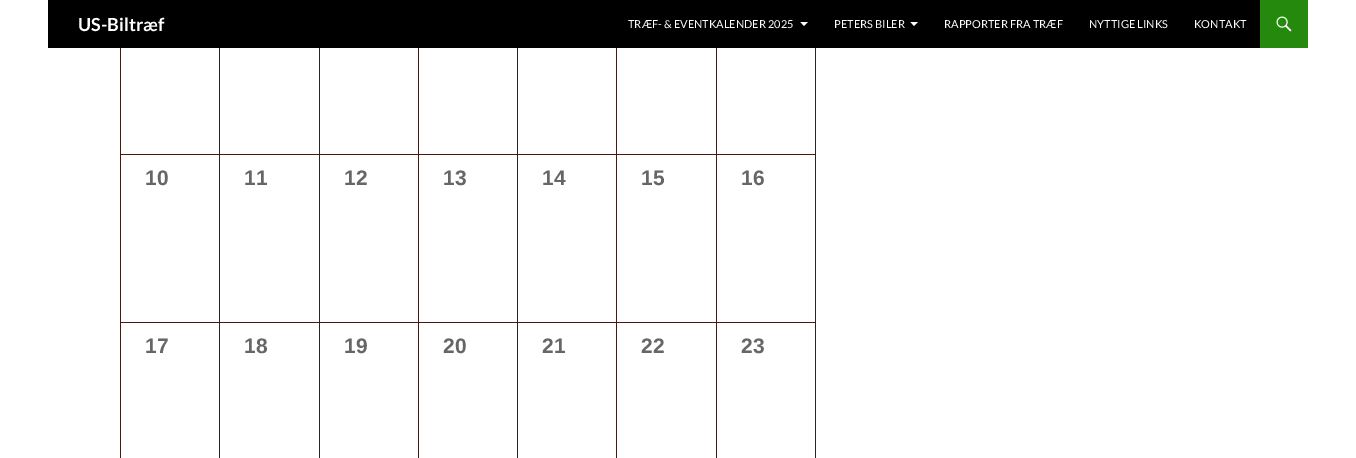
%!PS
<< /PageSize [1356 458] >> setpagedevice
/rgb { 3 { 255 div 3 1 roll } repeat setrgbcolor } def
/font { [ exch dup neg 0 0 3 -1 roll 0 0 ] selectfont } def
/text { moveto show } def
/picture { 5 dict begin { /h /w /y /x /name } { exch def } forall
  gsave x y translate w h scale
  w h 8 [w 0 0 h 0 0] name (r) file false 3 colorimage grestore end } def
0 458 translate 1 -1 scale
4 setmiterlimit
255 255 255 rgb
0 0 1356 458 rectfill
0 0 0 rgb
48 0 1212 48 rectfill
255 255 255 rgb
800.5 22 moveto 7.5 0 rlineto -4 4 rlineto closepath fill
910.5 22 moveto 7.5 0 rlineto -4 4 rlineto closepath fill
36 137 13 rgb
1260 0 48 48 rectfill
(img_01.rgb) 1276 16 16 16 picture
58 30 24 rgb
120 48 1 410 rectfill
219 48 1 410 rectfill
121 154 99 1 rectfill
319 48 1 410 rectfill
220 154 100 1 rectfill
418 48 1 410 rectfill
320 154 99 1 rectfill
517 48 1 410 rectfill
419 154 99 1 rectfill
616 48 1 410 rectfill
518 154 99 1 rectfill
716 48 1 410 rectfill
617 154 100 1 rectfill
815 48 1 410 rectfill
717 154 99 1 rectfill
121 322 695 1 rectfill
/Lato-Bold 18 font
255 255 255 rgb
(US-Biltræf) 78 31 text
/Lato-Regular 11 font
(TRÆF- & EVENTKALENDER 2025) 628 28 text
(PETERS BILER) 834 28 text
(RAPPORTER FRA TRÆF) 944 28 text
(NYTTIGE LINKS) 1089 28 text
(KONTAKT) 1194 28 text
/LiberationSans-Bold 21 font
102 102 102 rgb
(10) 145 185 text
(11) 244 185 text
(12) 344 185 text
(13) 443 185 text
(14) 542 185 text
(15) 641 185 text
(16) 741 185 text
(17) 145 353 text
(18) 244 353 text
(19) 344 353 text
(20) 443 353 text
(21) 542 353 text
(22) 641 353 text
(23) 741 353 text
showpage
